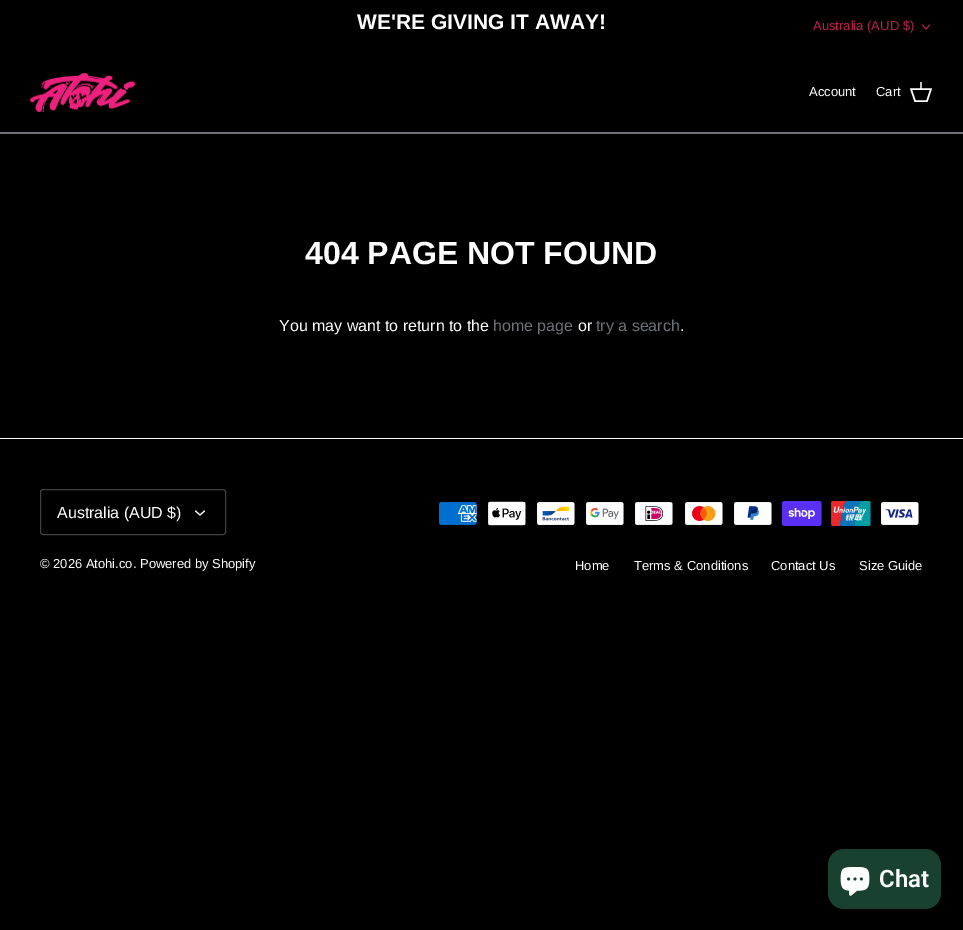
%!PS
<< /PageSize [963 930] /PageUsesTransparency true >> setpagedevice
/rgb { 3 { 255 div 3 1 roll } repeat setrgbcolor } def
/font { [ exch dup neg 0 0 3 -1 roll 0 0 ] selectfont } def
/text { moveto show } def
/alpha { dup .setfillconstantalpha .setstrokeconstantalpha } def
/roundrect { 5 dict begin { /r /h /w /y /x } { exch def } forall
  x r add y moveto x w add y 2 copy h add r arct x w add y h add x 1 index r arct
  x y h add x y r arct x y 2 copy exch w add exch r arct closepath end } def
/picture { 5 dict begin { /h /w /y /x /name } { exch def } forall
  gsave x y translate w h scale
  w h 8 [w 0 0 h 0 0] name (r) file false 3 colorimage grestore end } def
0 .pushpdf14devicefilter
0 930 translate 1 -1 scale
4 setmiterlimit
0 0 0 rgb
0 0 963 930 rectfill
188 31 76 rgb
0.9 setlinewidth
1 setlinecap
1 setlinejoin
922.5 25 moveto 3.5 4 rlineto 3.5 -4 rlineto stroke
(img_01.rgb) 30 73 105 39 picture
255 255 255 rgb
1.5 setlinewidth
0 setlinecap
0 setlinejoin
911 89 moveto 20 0 rlineto -4 12 rlineto -12 0 rlineto closepath stroke
0.75 alpha
920 82 2 8 rectfill
1 alpha
109 113 117 rgb
0 132 963 2 rectfill
255 255 255 rgb
0 438 963 1 rectfill
64 64 64 rgb
1 setlinewidth
40.5 489.5 185 45 2.5 roundrect stroke
255 255 255 rgb
1.1 setlinewidth
1 setlinecap
1 setlinejoin
195.5 511 moveto 4.5 4 rlineto 4.5 -4 rlineto stroke
(img_02.rgb) 439 502 38 23 picture
(img_03.rgb) 488 501 38 25 picture
(img_04.rgb) 537 502 38 23 picture
(img_05.rgb) 586 502 38 23 picture
(img_06.rgb) 635 502 38 23 picture
(img_07.rgb) 685 502 38 23 picture
(img_08.rgb) 734 502 38 23 picture
(img_09.rgb) 782 501 40 25 picture
(img_10.rgb) 831 501 40 25 picture
(img_11.rgb) 881 502 38 23 picture
24 65 47 rgb
828 849 113 60 16 roundrect fill
(img_12.rgb) 840 867 30 29 picture
/LiberationSans-Bold 21 font
255 255 255 rgb
(WE'RE GIVING IT AWAY!) 357 29 text
/LiberationSans-Regular 13 font
188 31 76 rgb
(Australia \(AUD $\)) 813 30 text
255 255 255 rgb
(Account) 809 96 text
(Cart) 876 96 text
/LiberationSans-Bold 32 font
(404 PAGE NOT FOUND) 305 264 text
/LiberationSans-Regular 16 font
(You may want to return to the) 279 331 text
109 113 117 rgb
(home page) 493 331 text
255 255 255 rgb
(or) 578 331 text
109 113 117 rgb
(try a search) 596 331 text
255 255 255 rgb
(.) 680 331 text
(Australia \(AUD $\)) 57 518 text
/LiberationSans-Regular 13 font
(© 2026 Atohi.co. Powered by Shopify) 40 568 text
(Home) 575 570 text
(Terms & Conditions) 634 570 text
(Contact Us) 771 570 text
(Size Guide) 859 570 text
/Roboto-SemiBold 24 font
(Chat) 879 887 text
.poppdf14devicefilter showpage
